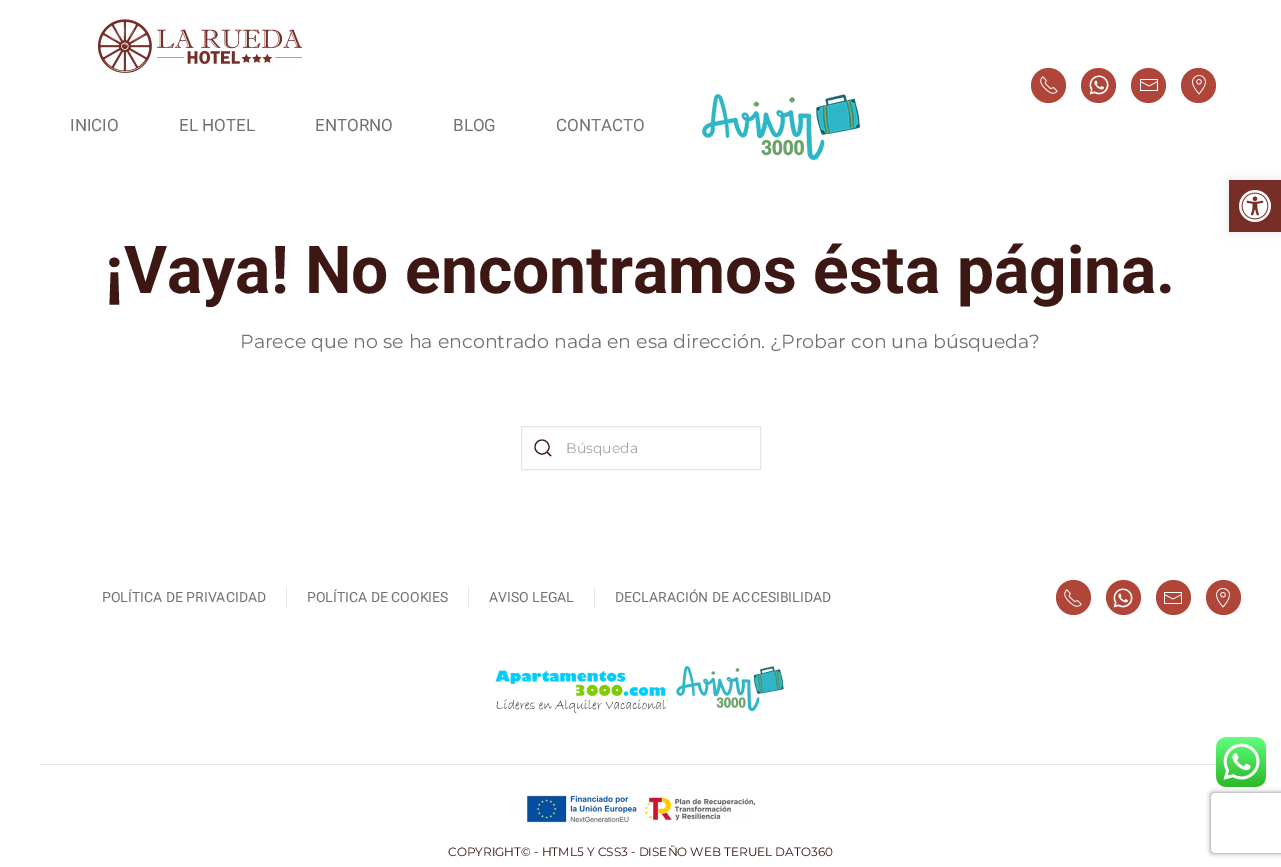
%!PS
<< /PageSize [1281 867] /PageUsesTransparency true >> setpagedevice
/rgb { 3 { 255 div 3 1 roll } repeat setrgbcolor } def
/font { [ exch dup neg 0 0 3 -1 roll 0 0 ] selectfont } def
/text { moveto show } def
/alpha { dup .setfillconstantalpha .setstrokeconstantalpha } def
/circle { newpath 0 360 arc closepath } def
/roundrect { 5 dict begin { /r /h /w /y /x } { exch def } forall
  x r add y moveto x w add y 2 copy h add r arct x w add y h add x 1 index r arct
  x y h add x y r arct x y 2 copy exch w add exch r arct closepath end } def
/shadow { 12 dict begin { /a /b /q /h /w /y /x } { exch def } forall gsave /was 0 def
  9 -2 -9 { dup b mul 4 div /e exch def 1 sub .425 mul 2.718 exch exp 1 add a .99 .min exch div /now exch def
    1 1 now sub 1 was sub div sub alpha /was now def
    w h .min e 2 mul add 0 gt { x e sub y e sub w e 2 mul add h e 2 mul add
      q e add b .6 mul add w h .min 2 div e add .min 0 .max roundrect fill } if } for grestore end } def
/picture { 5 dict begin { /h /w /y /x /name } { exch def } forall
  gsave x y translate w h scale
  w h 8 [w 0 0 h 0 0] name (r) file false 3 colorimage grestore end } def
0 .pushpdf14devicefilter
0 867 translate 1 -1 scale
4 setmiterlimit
255 255 255 rgb
0 0 1281 867 rectfill
176 69 57 rgb
1048.5 85.5 17.5 circle fill
(img_01.rgb) 1040 76 18 18 picture
1098.5 85.5 17.5 circle fill
(img_02.rgb) 1089 75 20 20 picture
1148.5 85.5 17.5 circle fill
(img_03.rgb) 1140 79 18 12 picture
1198.5 85.5 17.5 circle fill
(img_04.rgb) 1192 75 14 20 picture
(img_05.rgb) 97 19 206 54 picture
(img_06.rgb) 702 94 158 66 picture
230 230 230 rgb
521.5 426.5 239 43 rectstroke
60 23 19 rgb
1.1 setlinewidth
542 447 7 circle stroke
547 452 moveto 4 4 rlineto closepath stroke
230 230 230 rgb
286 587 1 21 rectfill
468 587 1 21 rectfill
594 587 1 21 rectfill
176 69 57 rgb
1073.5 597.5 17.5 circle fill
(img_01.rgb) 1064 589 18 18 picture
1123.5 597.5 17.5 circle fill
(img_02.rgb) 1113 588 20 20 picture
1173.5 597.5 17.5 circle fill
(img_03.rgb) 1164 592 18 12 picture
1223.5 597.5 17.5 circle fill
(img_04.rgb) 1216 588 14 20 picture
(img_07.rgb) 495 665 289 48 picture
230 230 230 rgb
40 764 1176 1 rectfill
(img_08.rgb) 526 795 230 28 picture
0 0 0 rgb
1229 180 52 52 0 5 0.1 shadow
118 46 38 rgb
1229 180 52 52 rectfill
(img_09.rgb) 1239 190 32 32 picture
gsave
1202 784 moveto 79 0 rlineto 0 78 rlineto -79 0 rlineto closepath 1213 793 moveto 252 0 rlineto 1 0 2 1 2 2 rcurveto 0 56 rlineto 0 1 -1 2 -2 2 rcurveto -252 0 rlineto -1 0 -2 -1 -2 -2 rcurveto 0 -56 rlineto 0 -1 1 -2 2 -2 rcurveto closepath eoclip newpath
128 128 128 rgb
1211 793 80 60 2 2.5 1 shadow
grestore
(img_10.rgb) 1216 737 50 50 picture
/Roboto-Regular 17 font
113 113 113 rgb
(INICIO) 70 131 text
(EL HOTEL) 179 131 text
(ENTORNO) 315 131 text
(BLOG) 453 131 text
(CONTACTO) 556 131 text
/Roboto-Bold 66 font
60 23 19 rgb
(¡Vaya! No encontramos ésta página.) 105 293 text
/Montserrat-Thin 19 font
113 113 113 rgb
(Parece que no se ha encontrado nada en esa dirección. ¿Probar con una búsqueda?) 240 348 text
/Montserrat-Thin 14 font
163 163 163 rgb
(Búsqueda) 566 453 text
/Roboto-Regular 14 font
113 113 113 rgb
(POLÍTICA DE PRIVACIDAD) 102 602 text
(POLÍTICA DE COOKIES) 307 602 text
(AVISO LEGAL) 489 602 text
(DECLARACIÓN DE ACCESIBILIDAD) 615 602 text
/Montserrat-Thin 12 font
60 23 19 rgb
(COPYRIGHT© - HTML5 Y CSS3 - DISEÑO WEB TERUEL DATO360) 448 856 text
.poppdf14devicefilter showpage
